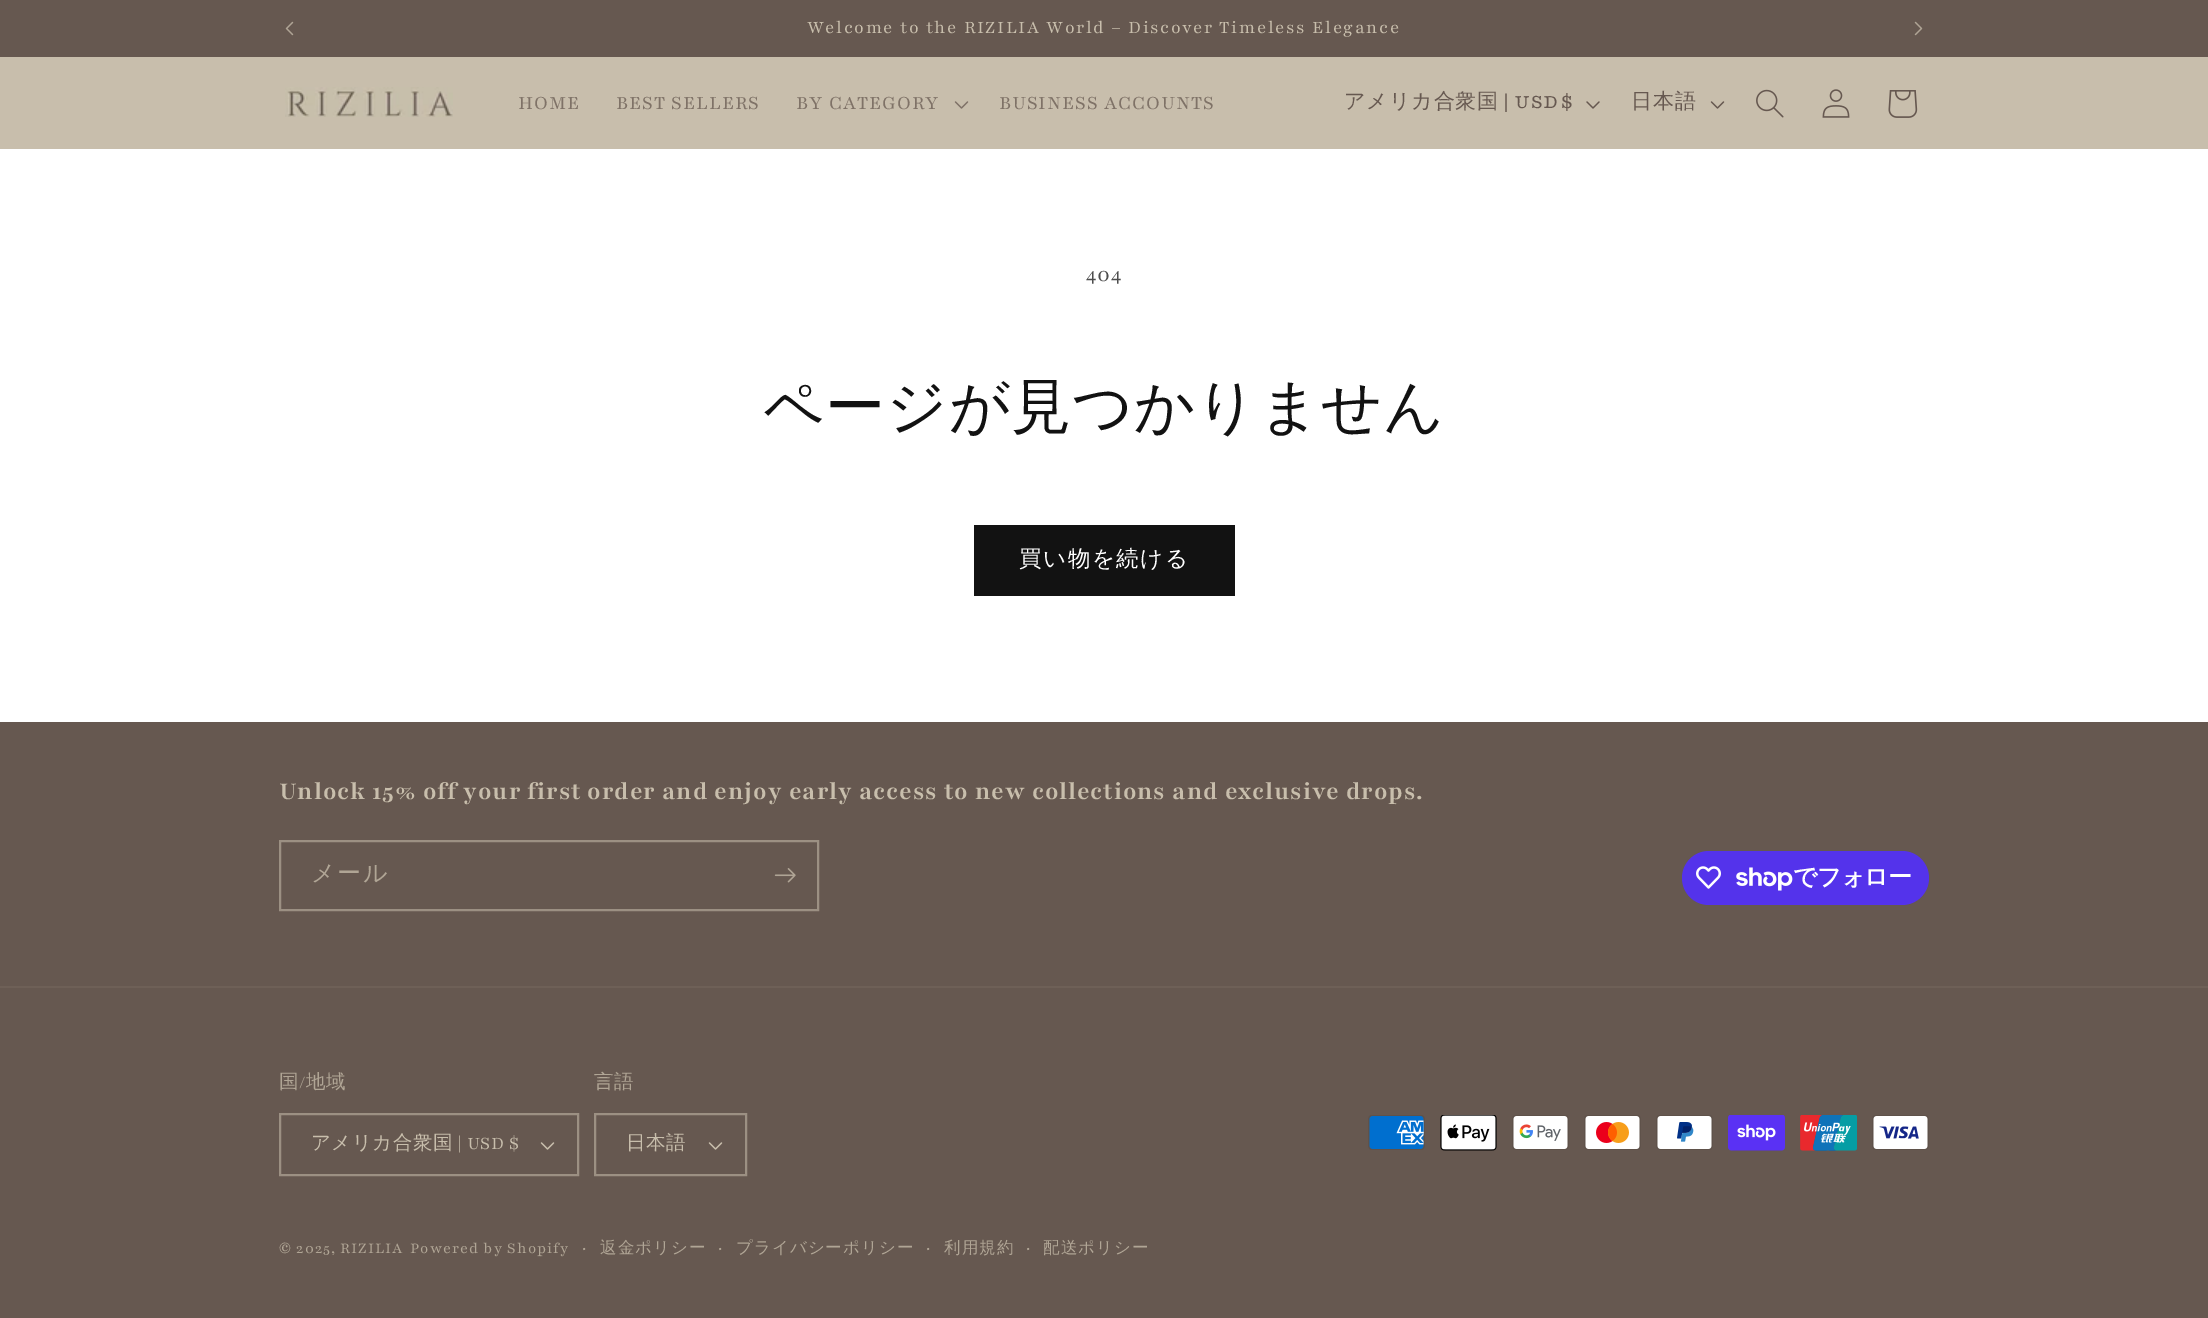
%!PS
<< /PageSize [2208 1318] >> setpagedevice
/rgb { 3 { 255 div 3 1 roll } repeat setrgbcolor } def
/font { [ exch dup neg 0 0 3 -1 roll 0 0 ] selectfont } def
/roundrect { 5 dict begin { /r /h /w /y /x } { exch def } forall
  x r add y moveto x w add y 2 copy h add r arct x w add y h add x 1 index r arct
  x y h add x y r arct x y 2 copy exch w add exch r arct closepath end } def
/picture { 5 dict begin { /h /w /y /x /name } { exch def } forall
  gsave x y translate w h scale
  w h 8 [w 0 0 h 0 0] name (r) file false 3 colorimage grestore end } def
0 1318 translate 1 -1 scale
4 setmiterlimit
255 255 255 rgb
0 0 2208 1318 rectfill
102 88 80 rgb
0 0 2208 57 rectfill
(img_01.rgb) 285 21 9 15 picture
(img_02.rgb) 1914 21 9 15 picture
200 190 172 rgb
0 57 2208 92 rectfill
(img_03.rgb) 285 87 168 30 picture
(img_04.rgb) 954 101 15 8 picture
(img_05.rgb) 1586 101 14 8 picture
(img_06.rgb) 1710 101 15 8 picture
(img_07.rgb) 1756 89 28 29 picture
(img_08.rgb) 1822 89 28 29 picture
(img_09.rgb) 1888 90 30 28 picture
18 18 18 rgb
974 525 261 71 rectfill
102 88 80 rgb
0 722 2208 596 rectfill
156 144 131 rgb
2 setlinewidth
280 841 538 69 rectstroke
(img_10.rgb) 774 868 22 15 picture
84 51 235 rgb
1682 851 247 54 27 roundrect fill
(img_11.rgb) 1696 866 25 23 picture
(img_12.rgb) 1736 867 57 24 picture
110 96 87 rgb
0 986 2208 2 rectfill
(img_13.rgb) 540 1142 15 8 picture
156 144 131 rgb
280 1114 298 61 rectstroke
(img_13.rgb) 708 1142 15 8 picture
595 1114 151 61 rectstroke
(img_14.rgb) 1368 1115 57 35 picture
(img_15.rgb) 1440 1115 57 36 picture
(img_16.rgb) 1512 1115 57 35 picture
(img_17.rgb) 1584 1115 57 35 picture
(img_18.rgb) 1656 1115 57 35 picture
(img_19.rgb) 1728 1115 57 36 picture
(img_20.rgb) 1800 1115 57 36 picture
(img_21.rgb) 1872 1115 57 35 picture
/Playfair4-Regular 19.5 font
200 190 172 rgb
807 33 moveto 1.5 0 (Welcome to the RIZILIA World – Discover Timeless Elegance) ashow
/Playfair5-Regular 21 font
127 114 103 rgb
518 109 moveto 0.9 0 (HOME) ashow
616 109 moveto 0.9 0 (BEST SELLERS) ashow
796 109 moveto 0.9 0 (BY CATEGORY) ashow
999 109 moveto 0.9 0 (BUSINESS ACCOUNTS) ashow
/WenQuanYiZenHei-Medium 21 font
102 88 80 rgb
1344 108 moveto 0.9 0 (アメリカ合衆国) ashow
/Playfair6-Regular 21 font
1504 108 moveto 0.9 0 (| USD) ashow
1561 108 moveto 0.9 0 ($) ashow
/WenQuanYiZenHei-Medium 21 font
1631 108 moveto 0.9 0 (日本語) ashow
/Playfair-Regular 24 font
77 77 77 rgb
1086 281 moveto 0.9 0 (404) ashow
/WenQuanYiZenHei-Medium 60 font
18 18 18 rgb
763 427 moveto 0.9 0 (ページが見つかりません) ashow
/WenQuanYiZenHei-Medium 22.5 font
255 255 255 rgb
1019 566 moveto 1.5 0 (買い物を続ける) ashow
/Playfair-Bold 27 font
200 190 172 rgb
279 799 moveto 0.9 0 (Unlock 15% off your first order and enjoy early access to new collections and exclusive drops.) ashow
/WenQuanYiZenHei-Medium 24 font
176 165 149 rgb
311 881 moveto 1.5 0 (メール) ashow
/WenQuanYiZenHei-Bold 24 font
255 255 255 rgb
1793 885 moveto -0.75 0 (でフォロー) ashow
/WenQuanYiZenHei-Medium 19.5 font
176 165 149 rgb
279 1088 moveto 0.5 0 (国) ashow
/Playfair4-Regular 19.5 font
299 1088 moveto 0.5 0 (/) ashow
/WenQuanYiZenHei-Medium 19.5 font
306 1088 moveto 0.5 0 (地域) ashow
200 190 172 rgb
311 1149 moveto 0.5 0 (アメリカ合衆国) ashow
/Playfair4-Regular 19.5 font
458 1149 moveto 0.5 0 (| USD $) ashow
/WenQuanYiZenHei-Medium 19.5 font
176 165 149 rgb
594 1088 moveto 0.5 0 (言語) ashow
200 190 172 rgb
626 1149 moveto 0.5 0 (日本語) ashow
/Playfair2-Regular 16.5 font
176 165 149 rgb
279 1253 moveto 1 0 (© 2025, RIZILIA) ashow
410 1253 moveto 1 0 (Powered by Shopify) ashow
/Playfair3-Regular 18 font
582 1253 moveto 1 0 (·) ashow
/WenQuanYiZenHei-Medium 16.5 font
600 1253 moveto 1 0 (返金ポリシー) ashow
/Playfair3-Regular 18 font
718 1253 moveto 1 0 (·) ashow
/WenQuanYiZenHei-Medium 16.5 font
736 1253 moveto 1 0 (プライバシーポリシー) ashow
/Playfair3-Regular 18 font
926 1253 moveto 1 0 (·) ashow
/WenQuanYiZenHei-Medium 16.5 font
944 1253 moveto 1 0 (利用規約) ashow
/Playfair3-Regular 18 font
1026 1253 moveto 1 0 (·) ashow
/WenQuanYiZenHei-Medium 16.5 font
1043 1253 moveto 1 0 (配送ポリシー) ashow
showpage
